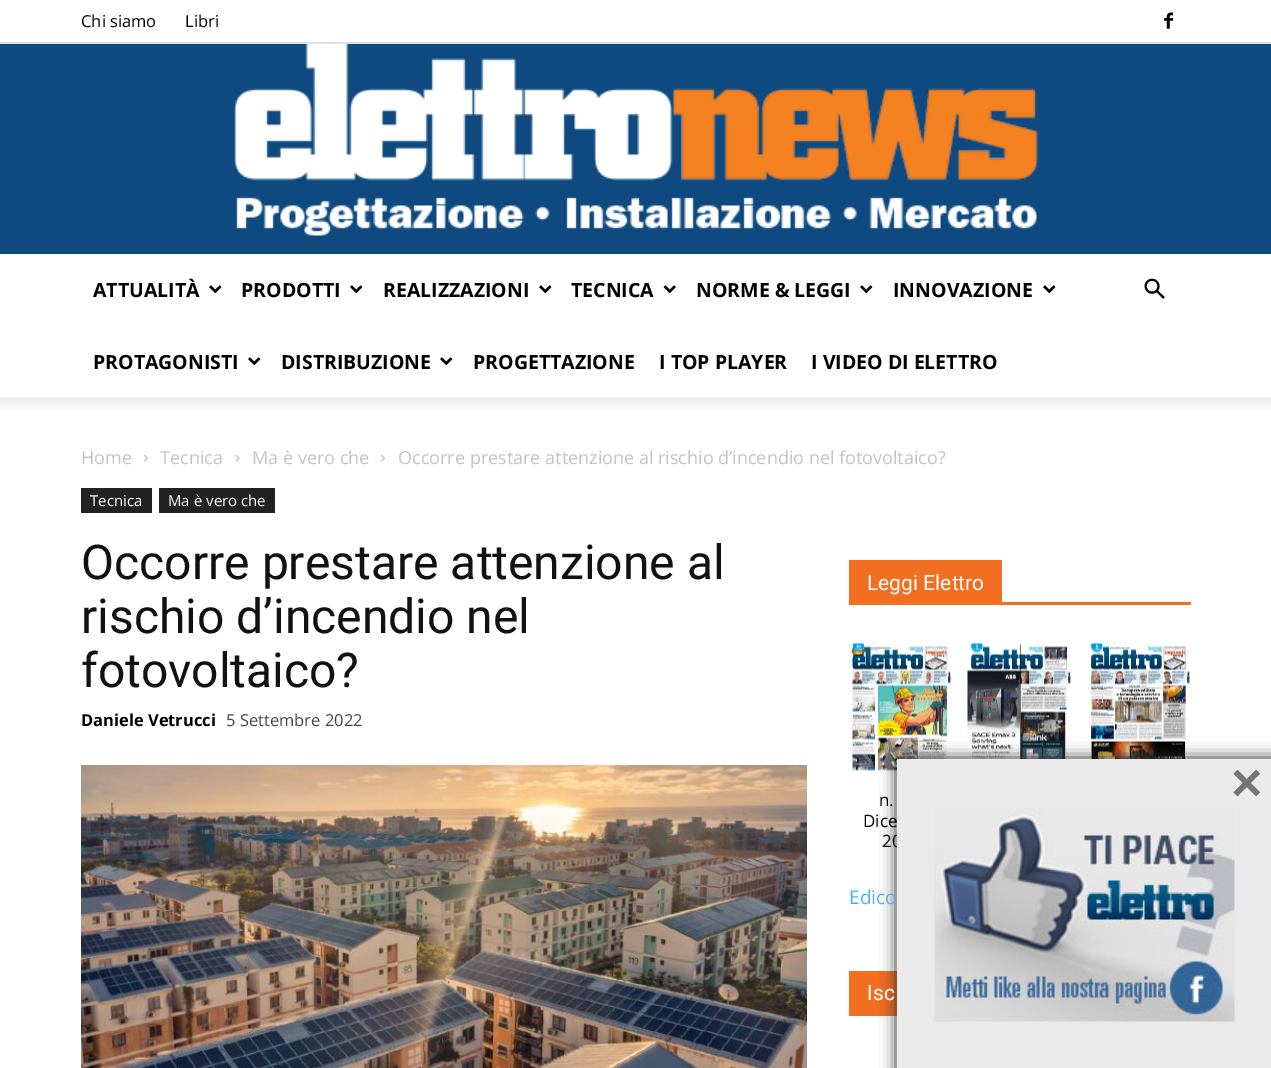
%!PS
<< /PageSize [1271 1068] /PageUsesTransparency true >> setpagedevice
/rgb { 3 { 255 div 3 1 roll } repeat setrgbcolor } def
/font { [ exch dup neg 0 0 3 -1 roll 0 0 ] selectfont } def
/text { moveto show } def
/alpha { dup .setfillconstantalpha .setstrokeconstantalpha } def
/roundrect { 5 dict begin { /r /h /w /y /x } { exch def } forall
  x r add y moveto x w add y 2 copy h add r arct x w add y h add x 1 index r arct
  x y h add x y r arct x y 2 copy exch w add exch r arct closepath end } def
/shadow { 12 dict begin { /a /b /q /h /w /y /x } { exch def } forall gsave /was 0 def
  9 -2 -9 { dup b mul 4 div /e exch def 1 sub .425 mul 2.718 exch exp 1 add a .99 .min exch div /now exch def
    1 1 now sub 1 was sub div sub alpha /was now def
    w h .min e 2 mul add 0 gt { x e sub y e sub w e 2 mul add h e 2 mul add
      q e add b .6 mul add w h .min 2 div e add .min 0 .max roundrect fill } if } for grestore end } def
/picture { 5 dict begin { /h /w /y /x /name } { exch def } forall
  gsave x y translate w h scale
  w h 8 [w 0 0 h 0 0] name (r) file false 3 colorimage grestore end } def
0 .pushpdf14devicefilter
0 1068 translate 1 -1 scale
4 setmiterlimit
255 255 255 rgb
0 0 1271 1068 rectfill
224 224 224 rgb
0 42 1271 2 rectfill
(img_01.rgb) 1164 12 9 17 picture
14 74 127 rgb
0 44 1271 210 rectfill
(img_02.rgb) 234 44 805 192 picture
(img_03.rgb) 209 285 13 9 picture
(img_03.rgb) 350 285 13 9 picture
(img_03.rgb) 539 285 13 9 picture
(img_04.rgb) 663 285 13 9 picture
(img_03.rgb) 860 285 13 9 picture
(img_03.rgb) 1043 285 13 9 picture
(img_03.rgb) 248 357 13 9 picture
(img_03.rgb) 440 357 13 9 picture
(img_05.rgb) 1144 278 21 21 picture
(img_06.rgb) 0 397 1271 13 picture
(img_07.rgb) 144 454 4 8 picture
(img_08.rgb) 235 454 5 8 picture
(img_07.rgb) 381 454 4 8 picture
34 34 34 rgb
81 488 71 25 rectfill
159 488 116 25 rectfill
(img_09.rgb) 81 765 726 303 picture
242 110 33 rgb
849 602 342 3 rectfill
849 560 153 42 rectfill
(img_10.rgb) 967 643 104 116 picture
(img_11.rgb) 1087 643 103 116 picture
(img_12.rgb) 849 643 102 128 picture
849 971 48 45 rectfill
51 51 51 rgb
896 758 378 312 0 7.5 1 shadow
/OpenSans-Regular 16.5 font
0 0 0 rgb
(Chi siamo) 81 27 text
(Libri) 185 27 text
/OpenSans-Bold 19.5 font
(ATTUALITÀ) 93 297 text
(PRODOTTI) 241 297 text
(REALIZZAZIONI) 383 297 text
(TECNICA) 571 297 text
(NORME & LEGGI) 696 297 text
(INNOVAZIONE) 893 297 text
(PROTAGONISTI) 93 369 text
(DISTRIBUZIONE) 281 369 text
(PROGETTAZIONE) 473 369 text
(I TOP PLAYER) 659 369 text
(I VIDEO DI ELETTRO) 811 369 text
/OpenSans-Regular 18 font
195 195 195 rgb
(Home) 81 464 text
(Tecnica) 160 464 text
(Ma è vero che) 252 464 text
(Occorre prestare attenzione al rischio d’incendio nel fotovoltaico?) 398 464 text
/OpenSans-Regular 15 font
255 255 255 rgb
(Tecnica) 90 506 text
(Ma è vero che) 168 506 text
/Roboto-Regular 48 font
17 17 17 rgb
(Occorre prestare attenzione al) 81 579 text
(rischio d’incendio nel) 81 633 text
(fotovoltaico?) 81 687 text
/OpenSans-Bold 16.5 font
0 0 0 rgb
(Daniele Vetrucci) 81 726 text
/OpenSans-Regular 16.5 font
68 68 68 rgb
(5 Settembre 2022) 226 726 text
/Roboto-Regular 21 font
255 255 255 rgb
(Leggi Elettro) 867 590 text
/OpenSans-Regular 17 font
0 0 0 rgb
(n.) 879 806 text
(Dice) 863 827 text
(20) 882 847 text
/OpenSans-Regular 19 font
77 178 236 rgb
(Edico) 849 904 text
/Roboto-Regular 21 font
255 255 255 rgb
(Isc) 867 1000 text
234 234 234 rgb
897 759 374 309 rectfill
/LiberationSans-Bold 54 font
117 117 117 rgb
(×) 1231 801 text
(img_13.rgb) 934 808 301 214 picture
.poppdf14devicefilter showpage
